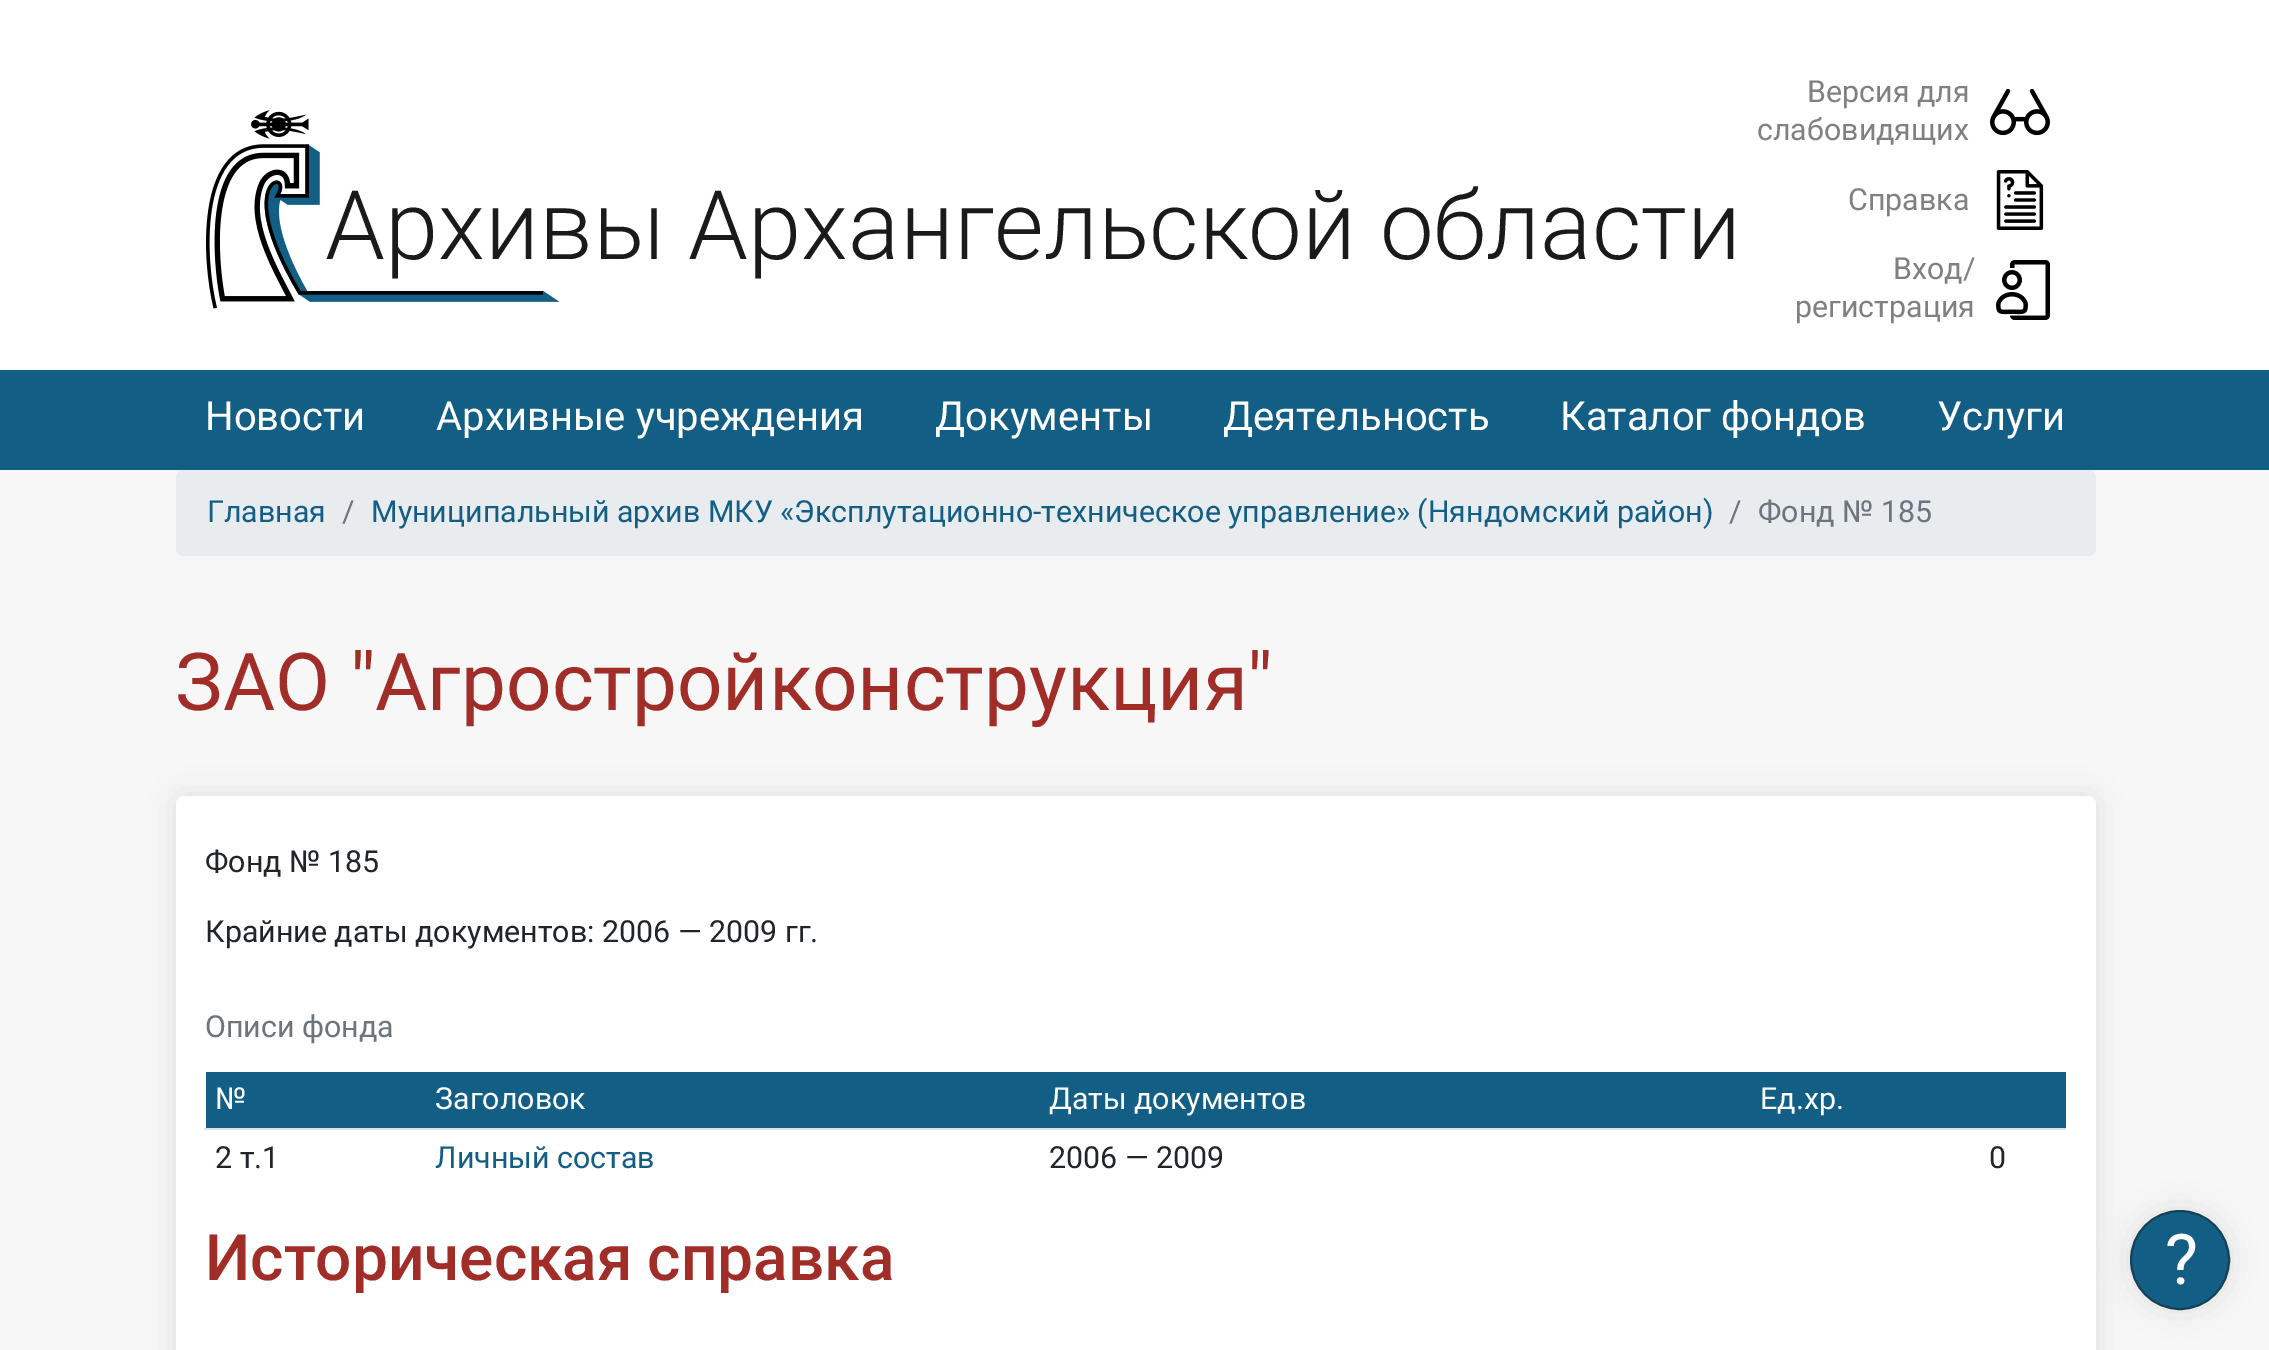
%!PS
<< /PageSize [2269 1350] /PageUsesTransparency true >> setpagedevice
/rgb { 3 { 255 div 3 1 roll } repeat setrgbcolor } def
/font { [ exch dup neg 0 0 3 -1 roll 0 0 ] selectfont } def
/text { moveto show } def
/alpha { dup .setfillconstantalpha .setstrokeconstantalpha } def
/circle { newpath 0 360 arc closepath } def
/roundrect { 5 dict begin { /r /h /w /y /x } { exch def } forall
  x r add y moveto x w add y 2 copy h add r arct x w add y h add x 1 index r arct
  x y h add x y r arct x y 2 copy exch w add exch r arct closepath end } def
/shadow { 12 dict begin { /a /b /q /h /w /y /x } { exch def } forall gsave /was 0 def
  9 -2 -9 { dup b mul 4 div /e exch def 1 sub .425 mul 2.718 exch exp 1 add a .99 .min exch div /now exch def
    1 1 now sub 1 was sub div sub alpha /was now def
    w h .min e 2 mul add 0 gt { x e sub y e sub w e 2 mul add h e 2 mul add
      q e add b .6 mul add w h .min 2 div e add .min 0 .max roundrect fill } if } for grestore end } def
/picture { 5 dict begin { /h /w /y /x /name } { exch def } forall
  gsave x y translate w h scale
  w h 8 [w 0 0 h 0 0] name (r) file false 3 colorimage grestore end } def
0 .pushpdf14devicefilter
0 1350 translate 1 -1 scale
4 setmiterlimit
247 247 247 rgb
0 0 2269 1350 rectfill
255 255 255 rgb
0 0 2269 370 rectfill
(img_01.rgb) 206 110 354 199 picture
(img_02.rgb) 1990 88 60 48 picture
(img_03.rgb) 1996 170 48 60 picture
(img_04.rgb) 1996 260 54 60 picture
18 94 132 rgb
0 370 2269 100 rectfill
233 236 239 rgb
176 470 1920 86 8 roundrect fill
0 0 0 rgb
176 796 1920 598 8 14 0.1 shadow
255 255 255 rgb
176 796 1920 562 8 roundrect fill
18 94 132 rgb
206 1072 1860 56 rectfill
222 226 230 rgb
204 1128 1862 2 rectfill
0 0 0 rgb
2130 1210 100 100 50 14 0.1 shadow
18 94 132 rgb
2180 1260 49 circle gsave fill grestore
20 66 89 rgb
2 setlinewidth
stroke
/Roboto-Light 96 font
26 26 26 rgb
(Архивы Архангельской области) 325 259 text
/Roboto-Regular 30.4 font
128 128 128 rgb
(Версия для) 1807 102 text
(слабовидящих) 1757 140 text
(Справка) 1848 210 text
(Вход/) 1893 279 text
(регистрация) 1795 317 text
/Roboto-Regular 40 font
255 255 255 rgb
(Новости) 205 430 text
(Архивные учреждения) 436 430 text
(Документы) 935 430 text
(Деятельность) 1223 430 text
(Каталог фондов) 1560 430 text
(Услуги) 1937 430 text
/Roboto-Regular 30.4 font
18 94 132 rgb
(Главная) 207 522 text
108 117 125 rgb
(/) 342 522 text
18 94 132 rgb
371 522 moveto -0.25 0 32 (Муниципальный архив МКУ «Эксплутационно-техническое управление» \(Няндомский район\)) widthshow
108 117 125 rgb
(/) 1729 522 text
(Фонд № 185) 1758 522 text
/Roboto-Regular 80 font
161 45 41 rgb
(ЗАО "Агростройконструкция") 175 710 text
/Roboto-Regular 30.4 font
33 37 41 rgb
(Фонд № 185) 205 872 text
(Крайние даты документов: 2006 — 2009 гг.) 205 942 text
108 117 125 rgb
(Описи фонда) 205 1037 text
255 255 255 rgb
(№) 215 1109 text
(Заголовок) 435 1109 text
(Даты документов) 1049 1109 text
(Ед.хр.) 1760 1109 text
33 37 41 rgb
(2 т.1) 215 1168 text
18 94 132 rgb
(Личный состав) 435 1168 text
33 37 41 rgb
(2006 — 2009) 1049 1168 text
(0) 1989 1168 text
/Roboto-Medium 64 font
161 45 41 rgb
205 1280 moveto -1 0 32 (Историческая справка) widthshow
/Roboto-Regular 70 font
255 255 255 rgb
(?) 2165 1284 text
.poppdf14devicefilter showpage
